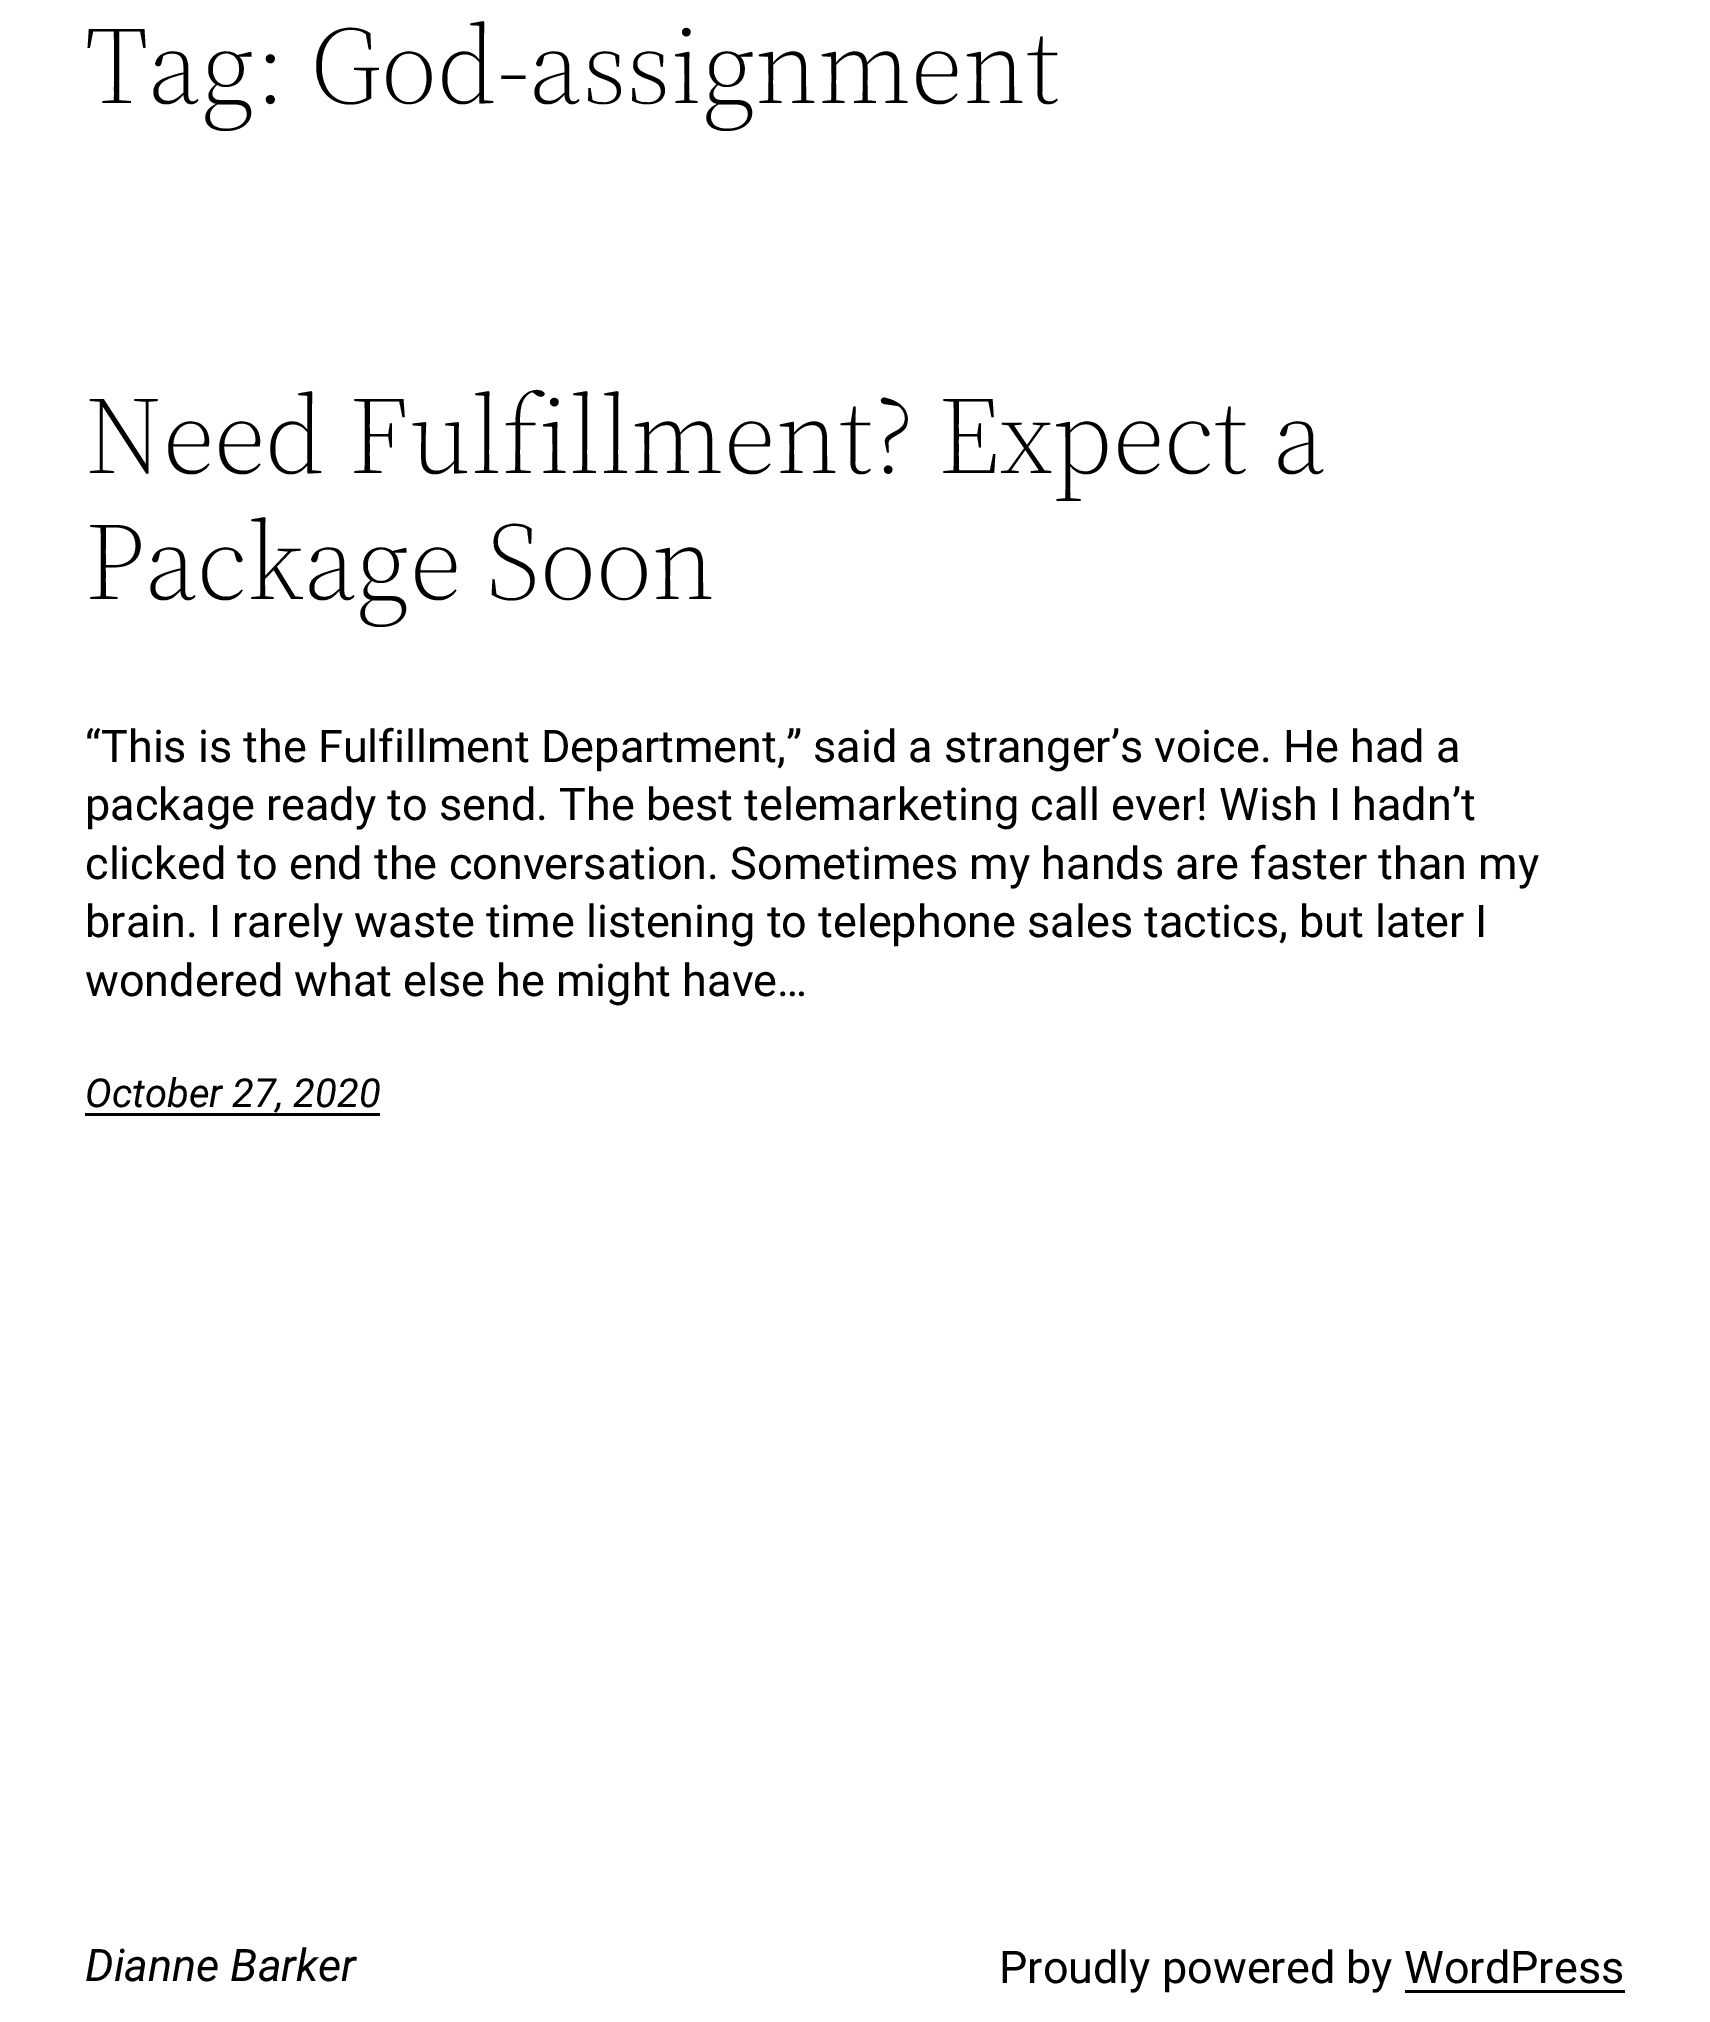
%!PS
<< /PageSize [1710 2022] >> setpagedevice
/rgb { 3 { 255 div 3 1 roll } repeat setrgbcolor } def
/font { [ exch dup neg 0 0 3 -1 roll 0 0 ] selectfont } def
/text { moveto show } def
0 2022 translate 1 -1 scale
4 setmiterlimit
255 255 255 rgb
0 0 1710 2022 rectfill
0 0 0 rgb
85 1113 295 3 rectfill
1405 1990 220 3 rectfill
/SourceSerif4-Light 110 font
(Tag: God-assignment) 85 103 text
(Need Fulfillment? Expect a) 85 473 text
(Package Soon) 85 599 text
/Roboto-Regular 45 font
(“This is the Fulfillment Department,” said a stranger’s voice. He had a) 85 762 text
(package ready to send. The best telemarketing call ever! Wish I hadn’t) 85 820 text
(clicked to end the conversation. Sometimes my hands are faster than my) 85 879 text
(brain. I rarely waste time listening to telephone sales tactics, but later I) 85 937 text
(wondered what else he might have…) 85 996 text
/Roboto-Italic 40 font
(October 27, 2020) 85 1107 text
/Roboto-Italic 45 font
(Dianne Barker) 85 1981 text
/Roboto-Regular 45 font
(Proudly powered by WordPress) 999 1983 text
showpage
